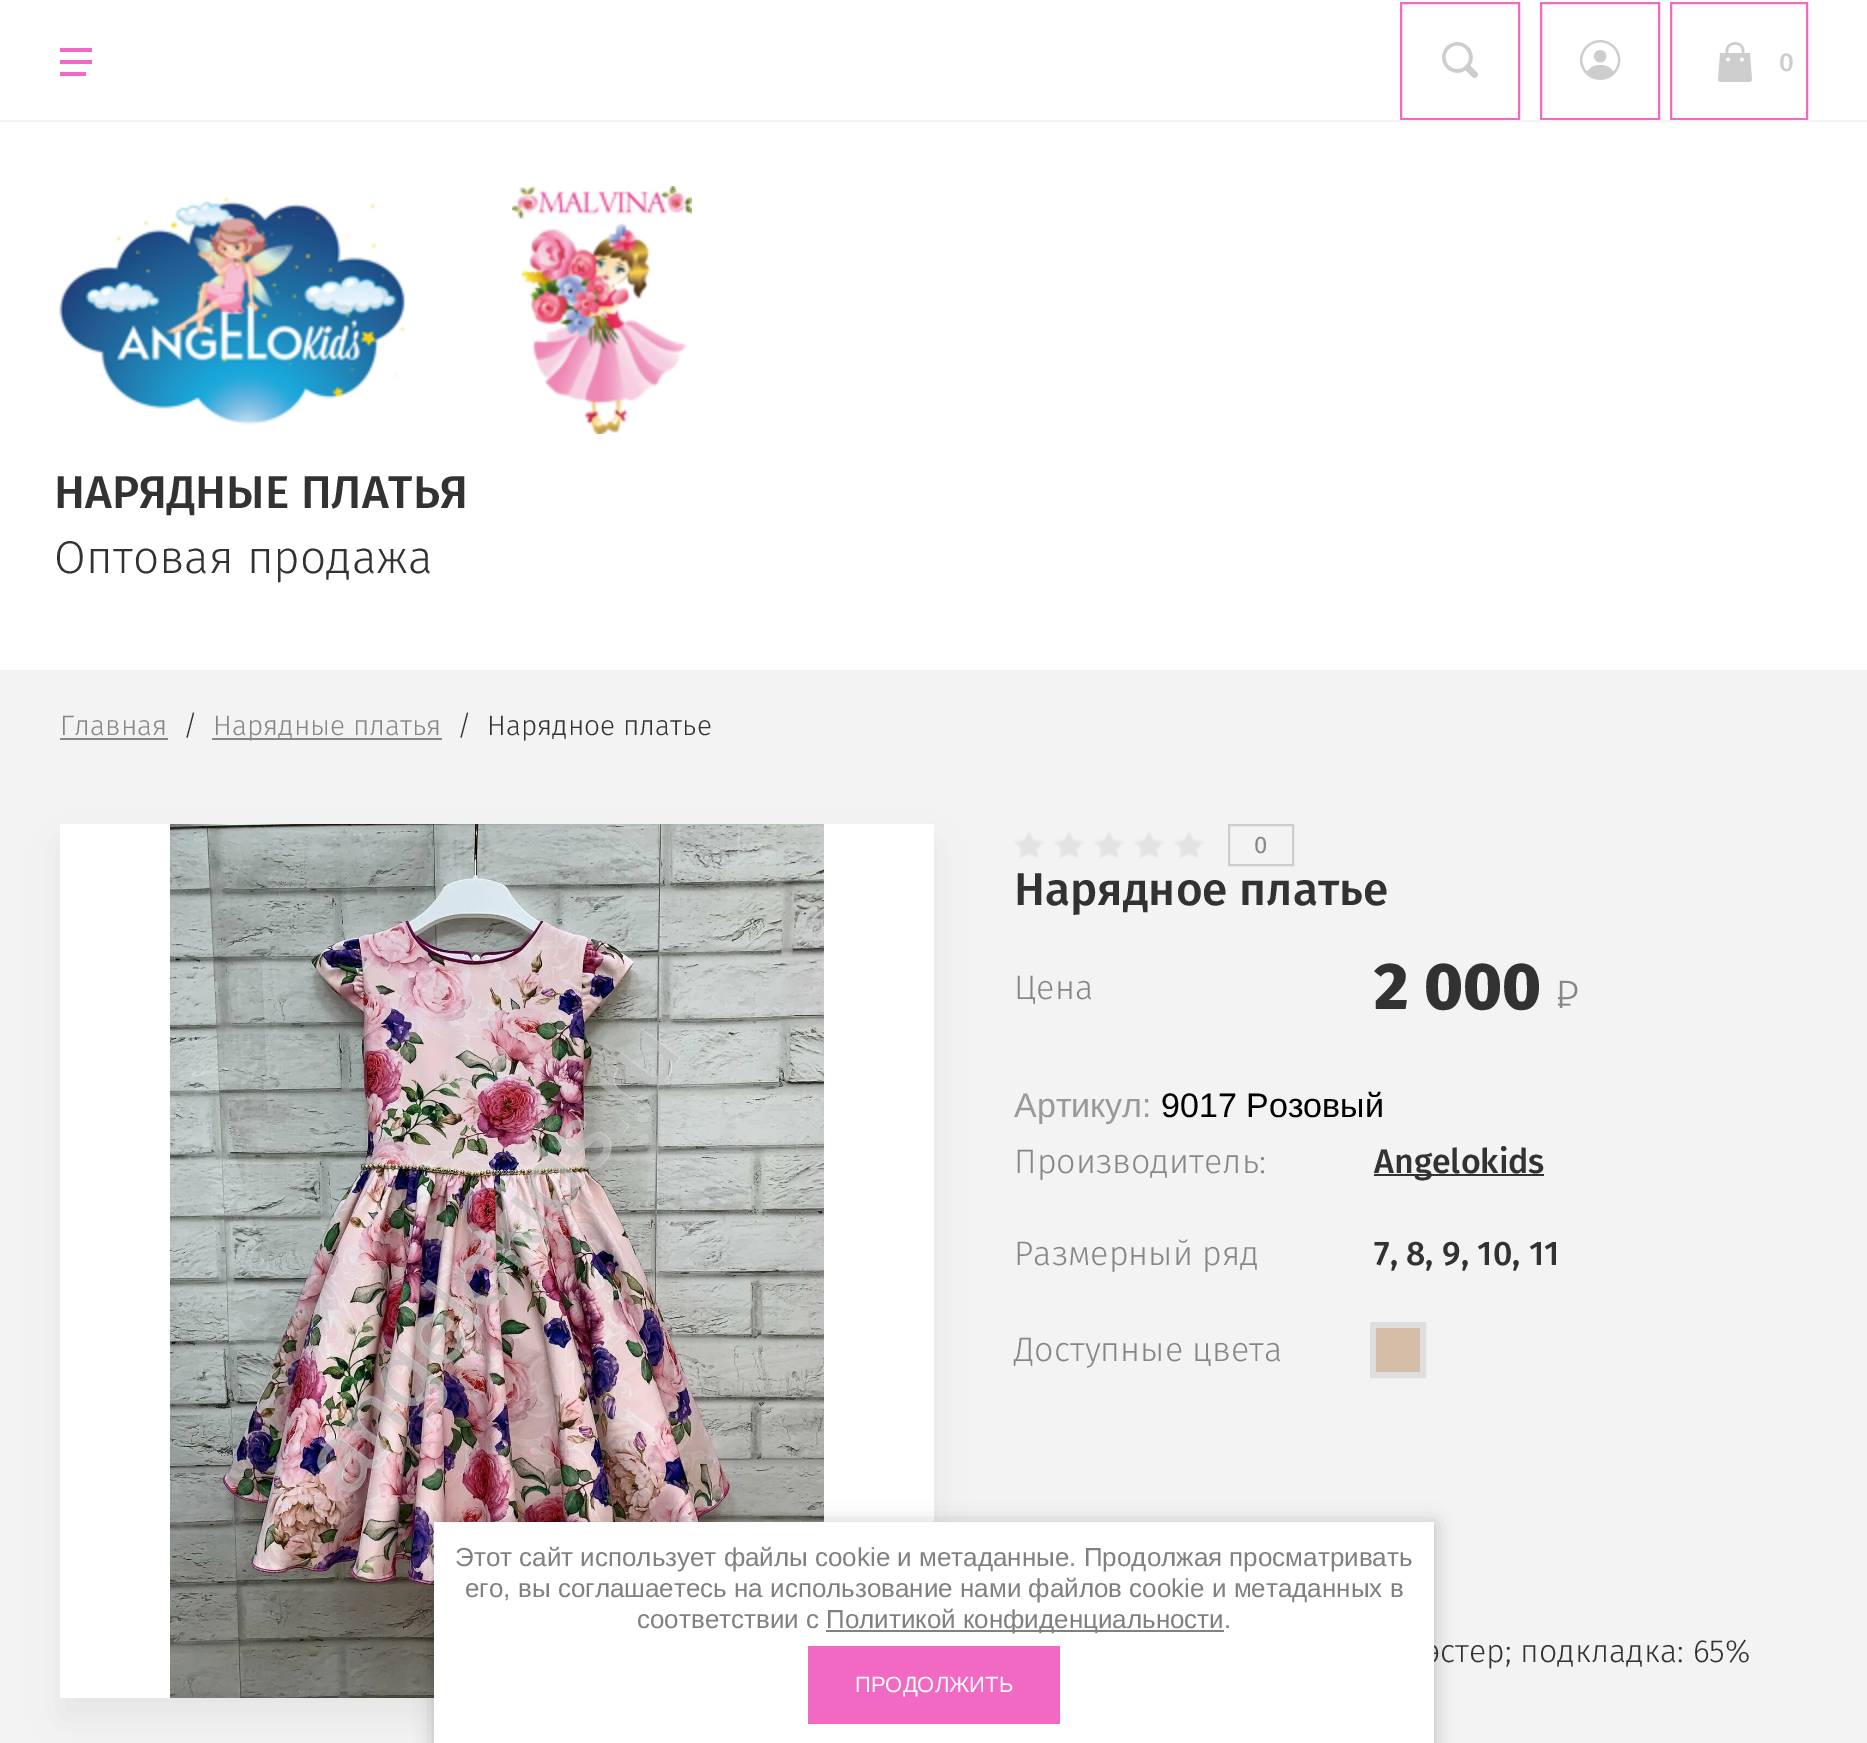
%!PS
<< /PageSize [1867 1743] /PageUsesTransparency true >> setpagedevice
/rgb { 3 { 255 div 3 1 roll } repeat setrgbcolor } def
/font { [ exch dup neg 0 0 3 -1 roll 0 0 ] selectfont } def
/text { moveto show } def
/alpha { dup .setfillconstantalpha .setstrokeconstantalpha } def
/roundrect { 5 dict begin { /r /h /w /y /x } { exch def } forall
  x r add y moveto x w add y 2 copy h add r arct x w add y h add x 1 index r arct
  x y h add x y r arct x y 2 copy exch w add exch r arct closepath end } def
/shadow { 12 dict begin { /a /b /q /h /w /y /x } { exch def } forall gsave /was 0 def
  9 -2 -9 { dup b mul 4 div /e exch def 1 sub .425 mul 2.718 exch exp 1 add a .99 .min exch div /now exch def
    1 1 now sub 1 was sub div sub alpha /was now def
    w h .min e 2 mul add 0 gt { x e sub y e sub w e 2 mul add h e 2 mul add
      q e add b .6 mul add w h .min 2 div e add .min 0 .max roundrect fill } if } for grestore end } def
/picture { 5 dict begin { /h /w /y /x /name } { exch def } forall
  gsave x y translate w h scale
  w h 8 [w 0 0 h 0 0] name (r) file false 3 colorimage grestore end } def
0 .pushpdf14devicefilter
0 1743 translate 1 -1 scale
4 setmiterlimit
243 243 243 rgb
0 0 1867 1743 rectfill
255 255 255 rgb
0 0 1867 670 rectfill
241 105 195 rgb
60 48 32 4 rectfill
60 60 32 4 rectfill
60 72 26 4 rectfill
(img_01.rgb) 1442 42 36 36 picture
2 setlinewidth
1401 3 118 116 rectstroke
1541 3 118 116 rectstroke
(img_02.rgb) 1580 40 41 40 picture
1671 3 136 116 rectstroke
(img_03.rgb) 1718 42 34 40 picture
243 243 243 rgb
0 120 1867 2 rectfill
(img_04.rgb) 59 197 347 228 picture
(img_05.rgb) 512 186 180 248 picture
134 134 134 rgb
60 738 108 2 rectfill
212 738 230 2 rectfill
0 0 0 rgb
60 844 874 874 0 20 0.05 shadow
255 255 255 rgb
60 824 874 874 rectfill
(img_06.rgb) 170 824 654 874 picture
(img_07.rgb) 1014 832 190 26 picture
205 205 205 rgb
1229 825 64 40 rectstroke
(img_08.rgb) 1558 980 20 28 picture
50 50 50 rgb
1374 1174 170 2 rectfill
222 222 222 rgb
1375 1327 46 46 rectstroke
4 setlinewidth
1372 1324 52 52 rectstroke
214 189 167 rgb
1376 1328 44 44 rectfill
0 0 0 rgb
434 1524 1000 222 0 10 0.23 shadow
/FiraSans-Medium 26 font
205 205 205 rgb
(0) 1779 71 text
/FiraSans-Medium 46 font
50 50 50 rgb
(НАРЯДНЫЕ ПЛАТЬЯ) 54 508 text
/FiraSans-Light 46 font
(Оптовая продажа) 54 573 text
/FiraSans-Light 28 font
134 134 134 rgb
(Главная) 60 735 text
50 50 50 rgb
(/) 183 735 text
134 134 134 rgb
(Нарядные платья) 213 735 text
50 50 50 rgb
(/  Нарядное платье) 457 735 text
/FiraSans-Regular 24 font
134 134 134 rgb
(0) 1254 853 text
/FiraSans-Medium 46 font
50 50 50 rgb
(Нарядное платье) 1014 905 text
/FiraSans-Light 34 font
134 134 134 rgb
(Цена) 1014 999 text
/FiraSans-ExtraBold 66 font
50 50 50 rgb
(2 000) 1374 1009 text
/LiberationSans-Regular 34 font
153 153 153 rgb
(Артикул:) 1014 1117 text
0 0 0 rgb
(9017 Розовый) 1161 1117 text
/FiraSans-Light 34 font
134 134 134 rgb
(Производитель:) 1014 1173 text
/FiraSans-Medium 34 font
50 50 50 rgb
(Angelokids) 1374 1173 text
/FiraSans-Light 34 font
134 134 134 rgb
(Размерный ряд) 1014 1265 text
/FiraSans-Medium 34 font
50 50 50 rgb
(7, 8, 9, 10, 11) 1374 1265 text
/FiraSans-Light 34 font
134 134 134 rgb
(Доступные цвета) 1014 1361 text
/FiraSans-Light 32 font
50 50 50 rgb
(эстер; подкладка: 65%) 1425 1662 text
255 255 255 rgb
434 1522 1000 221 rectfill
/LiberationSans-Regular 26 font
128 128 128 rgb
(Этот сайт использует файлы cookie и метаданные. Продолжая просматривать) 455 1566 text
(его, вы соглашаетесь на использование нами файлов cookie и метаданных в) 465 1597 text
(соответствии с) 637 1628 text
826 1630 398 2 rectfill
(Политикой конфиденциальности.) 826 1628 text
241 105 195 rgb
808 1646 252 78 rectfill
/LiberationSans-Regular 22 font
255 255 255 rgb
(ПРОДОЛЖИТЬ) 855 1692 text
.poppdf14devicefilter showpage
